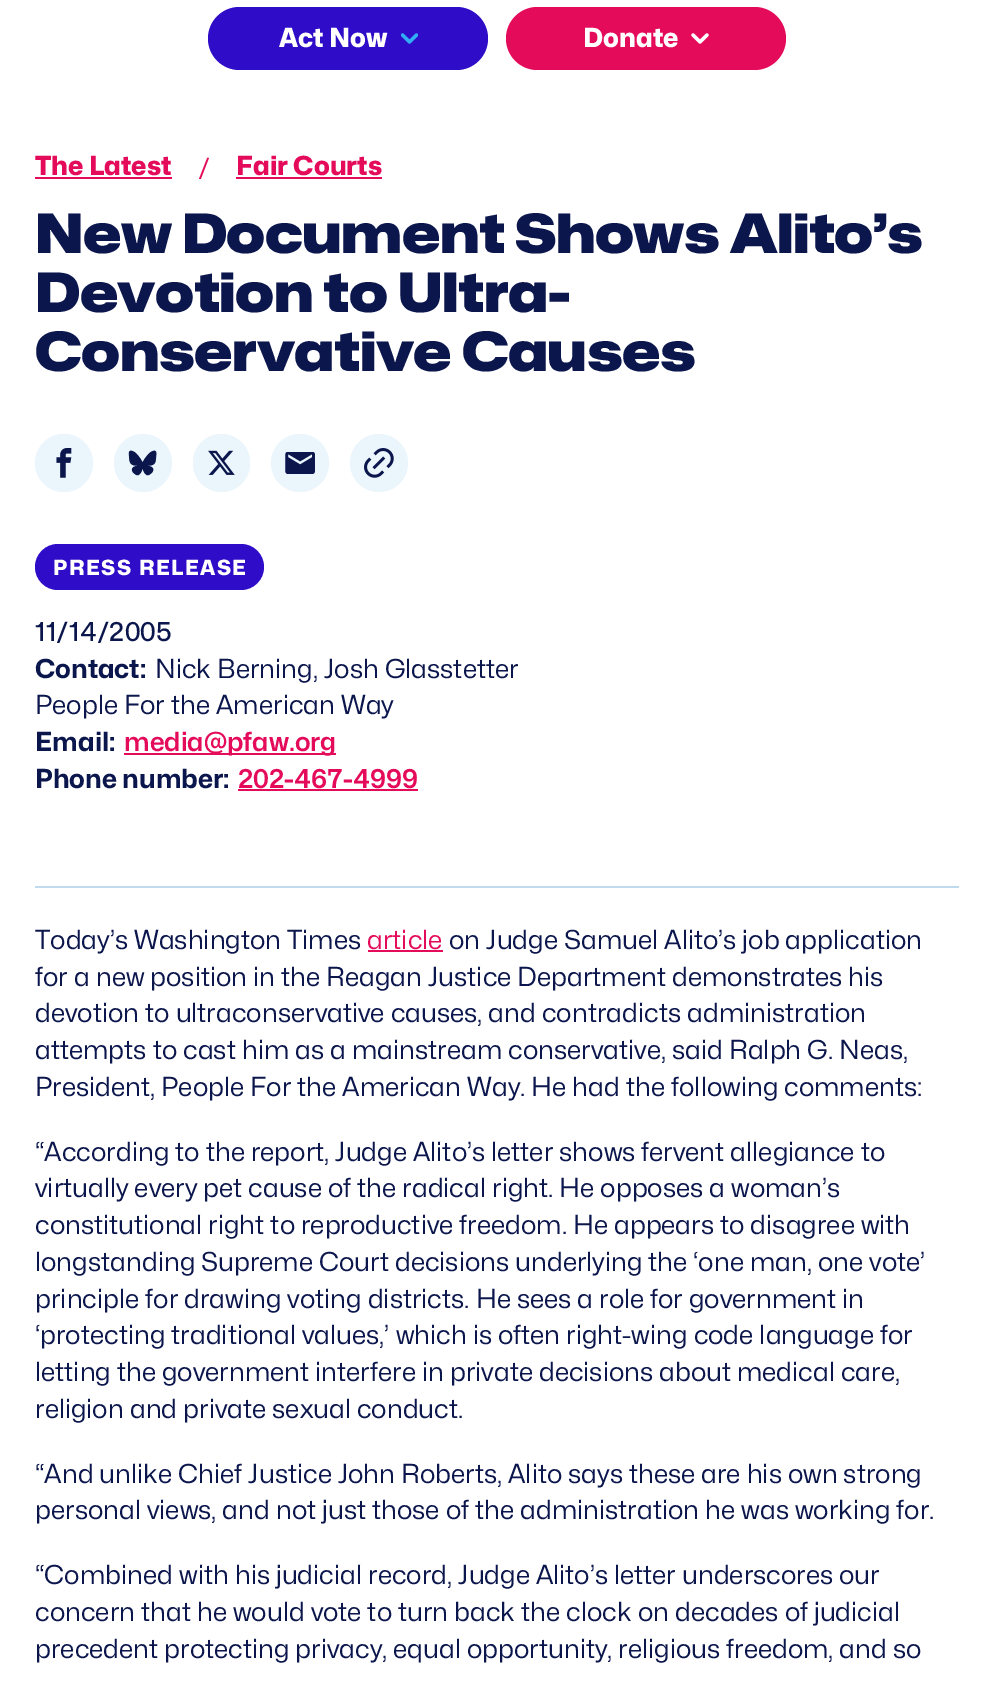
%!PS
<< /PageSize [994 1685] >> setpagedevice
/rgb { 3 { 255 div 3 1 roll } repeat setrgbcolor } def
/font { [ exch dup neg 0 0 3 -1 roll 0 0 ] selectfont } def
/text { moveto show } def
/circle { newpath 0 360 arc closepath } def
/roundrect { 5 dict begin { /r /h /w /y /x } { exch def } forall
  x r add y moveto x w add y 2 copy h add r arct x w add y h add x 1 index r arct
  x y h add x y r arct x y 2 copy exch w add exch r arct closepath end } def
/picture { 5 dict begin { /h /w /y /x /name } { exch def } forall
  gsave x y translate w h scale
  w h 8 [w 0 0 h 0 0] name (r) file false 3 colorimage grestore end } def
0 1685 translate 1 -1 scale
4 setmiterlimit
255 255 255 rgb
0 0 994 1685 rectfill
47 12 200 rgb
208 7 280 63 31.5 roundrect fill
(img_01.rgb) 401 33 17 11 picture
229 11 91 rgb
506 7 280 63 31.5 roundrect fill
(img_02.rgb) 691 33 18 11 picture
35 177 137 2 rectfill
236 177 146 2 rectfill
234 245 252 rgb
64 463 29 circle fill
(img_03.rgb) 56 448 16 30 picture
143 463 29 circle fill
(img_04.rgb) 128 450 29 26 picture
193 434 57 58 28.5 roundrect fill
(img_05.rgb) 208 450 27 25 picture
300 463 29 circle fill
(img_06.rgb) 285 452 30 22 picture
379 463 29 circle fill
(img_07.rgb) 364 448 30 30 picture
47 12 200 rgb
35 544 229 46 23 roundrect fill
229 11 91 rgb
124 753 212 2 rectfill
238 789 180 2 rectfill
192 218 238 rgb
35 886 924 2 rectfill
229 11 91 rgb
368 950 75 2 rectfill
/MonaSans-ExtraBold 26.25 font
255 255 255 rgb
(Act Now) 279 47 text
(Donate) 583 47 text
229 11 91 rgb
(The Latest) 35 175 text
/MonaSans-Regular 26.25 font
(/) 198 177 text
/MonaSans-ExtraBold 26.25 font
(Fair Courts) 236 175 text
/MonaSans-Black 54.25 font
11 22 76 rgb
35 253 moveto -0.55 0 (New Document Shows Alito’s) ashow
35 312 moveto -0.55 0 (Devotion to Ultra-) ashow
35 371 moveto -0.55 0 (Conservative Causes) ashow
/MonaSans-ExtraBold 21 font
255 255 255 rgb
53 575 moveto 1.5 0 (PRESS RELEASE) ashow
/MonaSans-Medium 26.25 font
11 22 76 rgb
(11/14/2005) 35 641 text
/MonaSans-Bold 26.25 font
(Contact:) 35 678 text
/MonaSans-Regular 26.25 font
(Nick Berning, Josh Glasstetter) 155 678 text
(People For the American Way) 35 714 text
/MonaSans-Bold 26.25 font
(Email:) 35 751 text
/MonaSans-SemiBold 26.25 font
229 11 91 rgb
(media@pfaw.org) 124 751 text
/MonaSans-Bold 26.25 font
11 22 76 rgb
(Phone number:) 35 788 text
/MonaSans-SemiBold 26.25 font
229 11 91 rgb
(202-467-4999) 238 788 text
/MonaSans-Regular 26.25 font
11 22 76 rgb
(Today’s Washington Times) 35 949 text
229 11 91 rgb
(article) 367 949 text
11 22 76 rgb
(on Judge Samuel Alito’s job application) 449 949 text
(for a new position in the Reagan Justice Department demonstrates his) 35 986 text
(devotion to ultraconservative causes, and contradicts administration) 35 1022 text
(attempts to cast him as a mainstream conservative, said Ralph G. Neas,) 35 1059 text
(President, People For the American Way. He had the following comments:) 35 1096 text
(“According to the report, Judge Alito’s letter shows fervent allegiance to) 35 1161 text
(virtually every pet cause of the radical right. He opposes a woman’s) 35 1197 text
(constitutional right to reproductive freedom. He appears to disagree with) 35 1234 text
(longstanding Supreme Court decisions underlying the ‘one man, one vote’) 35 1271 text
(principle for drawing voting districts. He sees a role for government in) 35 1308 text
(‘protecting traditional values,’ which is often right-wing code language for) 35 1344 text
(letting the government interfere in private decisions about medical care,) 35 1381 text
(religion and private sexual conduct.) 35 1418 text
(“And unlike Chief Justice John Roberts, Alito says these are his own strong) 35 1483 text
(personal views, and not just those of the administration he was working for.) 35 1519 text
(“Combined with his judicial record, Judge Alito’s letter underscores our) 35 1584 text
(concern that he would vote to turn back the clock on decades of judicial) 35 1621 text
(precedent protecting privacy, equal opportunity, religious freedom, and so) 35 1658 text
showpage
